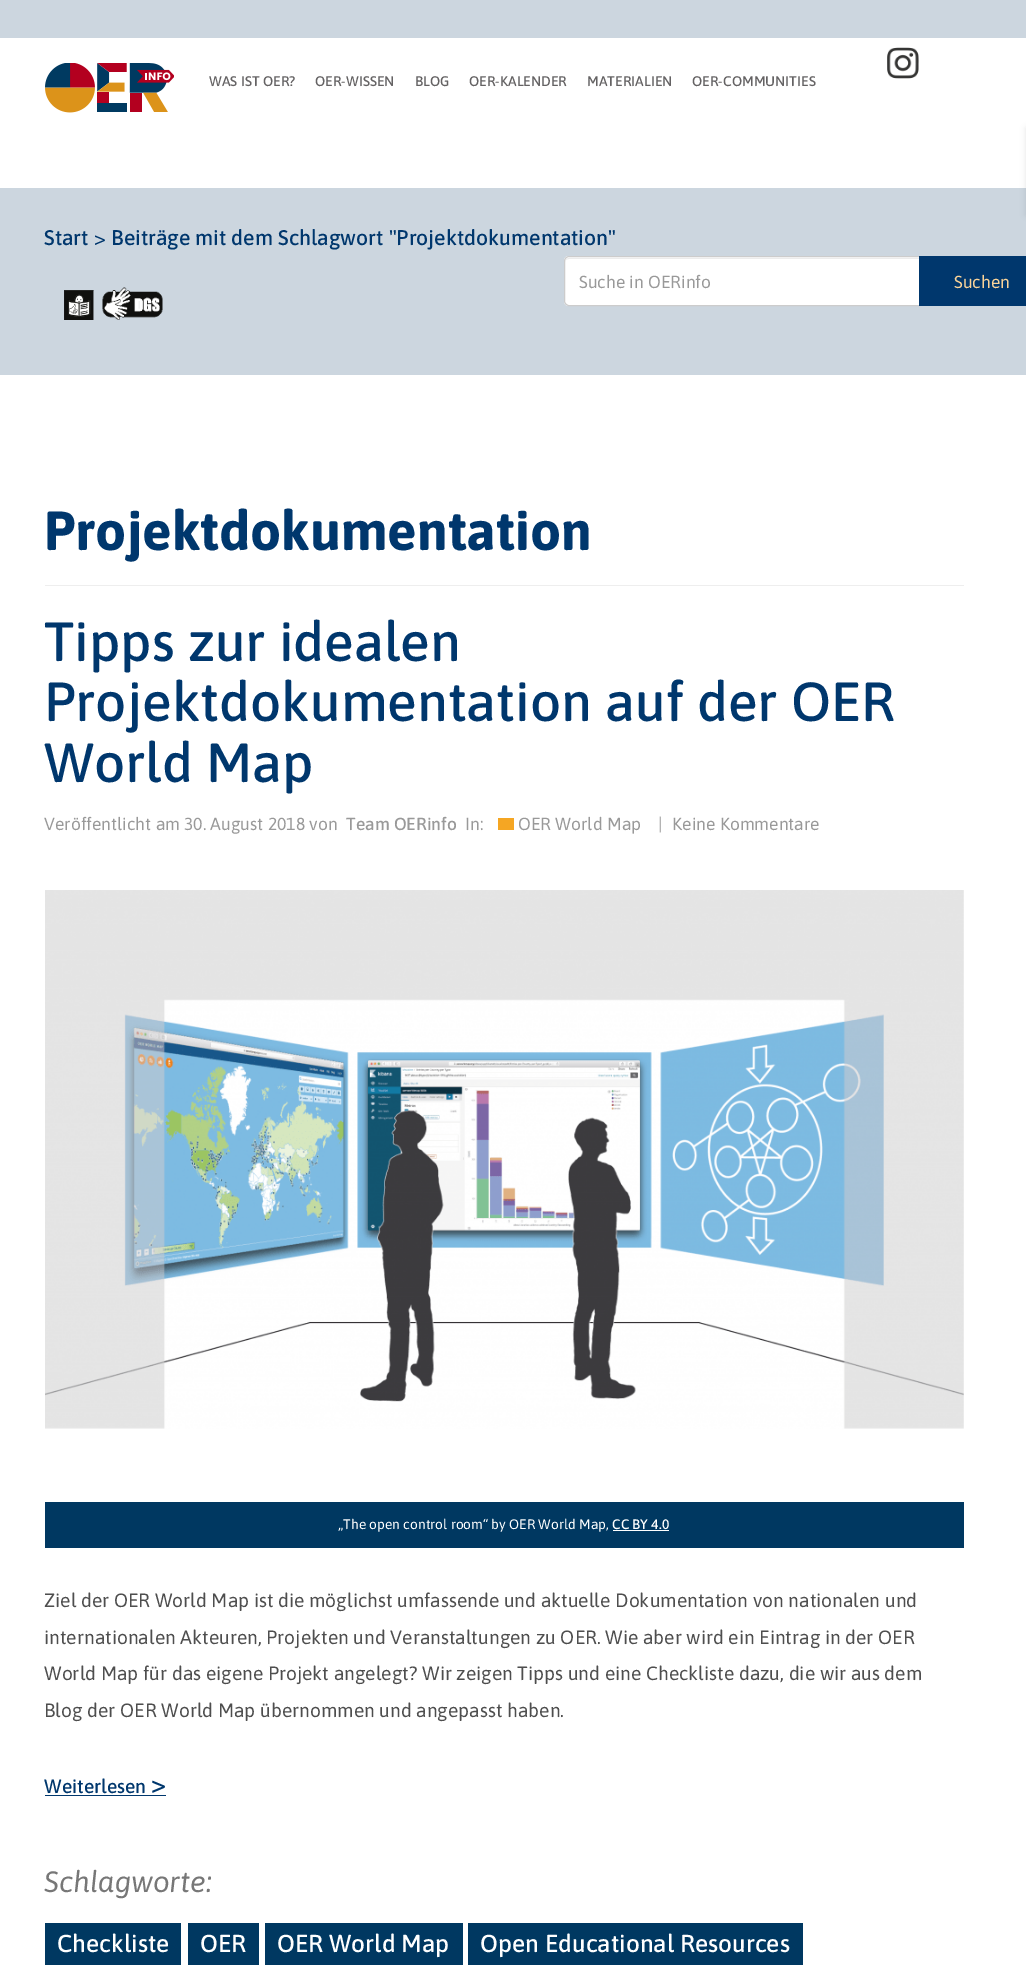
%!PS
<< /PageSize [1026 1978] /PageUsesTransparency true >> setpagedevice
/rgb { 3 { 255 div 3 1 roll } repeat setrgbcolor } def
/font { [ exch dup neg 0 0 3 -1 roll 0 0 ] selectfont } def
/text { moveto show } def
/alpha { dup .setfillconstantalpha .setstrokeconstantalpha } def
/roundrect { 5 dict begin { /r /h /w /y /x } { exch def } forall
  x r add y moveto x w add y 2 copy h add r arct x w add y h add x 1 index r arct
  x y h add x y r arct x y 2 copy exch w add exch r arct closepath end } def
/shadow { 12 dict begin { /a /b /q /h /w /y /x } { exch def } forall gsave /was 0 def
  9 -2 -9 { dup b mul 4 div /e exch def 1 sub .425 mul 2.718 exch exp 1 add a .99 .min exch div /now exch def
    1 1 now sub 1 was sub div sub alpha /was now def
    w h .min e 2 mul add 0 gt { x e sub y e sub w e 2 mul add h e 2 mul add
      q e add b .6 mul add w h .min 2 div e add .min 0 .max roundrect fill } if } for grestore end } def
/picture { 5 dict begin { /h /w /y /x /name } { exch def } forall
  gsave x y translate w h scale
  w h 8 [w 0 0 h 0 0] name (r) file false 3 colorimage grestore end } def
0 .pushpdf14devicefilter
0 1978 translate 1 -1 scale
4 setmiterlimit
255 255 255 rgb
0 0 1026 1978 rectfill
204 214 223 rgb
0 0 1026 375 rectfill
255 255 255 rgb
0 38 1026 150 rectfill
(img_01.rgb) 45 63 129 50 picture
(img_02.rgb) 887 47 32 32 picture
0 0 0 rgb
1026 128 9 87 0 3 0.1 shadow
255 255 255 rgb
569 256 moveto 351 0 rlineto 0 50 rlineto -351 0 rlineto -3 0 -5 -2 -5 -5 rcurveto 0 -40 rlineto 0 -3 2 -5 5 -5 rcurveto closepath fill
236 236 236 rgb
569 259 moveto 350 0 rlineto 0 -1 rlineto -350 0 rlineto -2 0 -4 2 -4 4 rcurveto 0 -2 2 -3 4 -3 rcurveto closepath fill
204 204 204 rgb
569 256.5 moveto 350.5 0 rlineto 0 49 rlineto -350.5 0 rlineto -2.5 0 -4.5 -2 -4.5 -4.5 rcurveto 0 -40 rlineto 0 -2.5 2 -4.5 4.5 -4.5 rcurveto closepath stroke
0 55 109 rgb
919 256 107 50 rectfill
(img_03.rgb) 64 290 30 30 picture
(img_04.rgb) 102 287 61 33 picture
238 238 238 rgb
45 585 919 1 rectfill
245 166 35 rgb
498 818 16 12 rectfill
(img_05.rgb) 45 890 919 539 picture
0 56 97 rgb
45 1502 919 46 rectfill
255 255 255 rgb
613 1530 56 1 rectfill
0 55 109 rgb
45 1795 121 1 rectfill
0 56 97 rgb
45 1923 136 42 rectfill
188 1923 71 42 rectfill
265 1923 198 42 rectfill
468 1923 335 42 rectfill
/Asap-Medium 14 font
100 98 99 rgb
(WAS IST OER?) 209 86 text
(OER-WISSEN) 315 86 text
(BLOG) 415 86 text
(OER-KALENDER) 469 86 text
(MATERIALIEN) 587 86 text
(OER-COMMUNITIES) 692 86 text
/Asap-Medium 21.25 font
0 55 109 rgb
(Start) 44 245 text
/Asap-Regular 21.25 font
(>) 94 245 text
/Asap-Medium 21.25 font
(Beiträge mit dem Schlagwort "Projektdokumentation") 111 245 text
/Asap-Regular 17.5 font
153 153 153 rgb
(Suche in OERinfo) 579 288 text
251 212 153 rgb
(Suchen) 954 288 text
/Asap-Bold 55 font
0 55 109 rgb
(Projektdokumentation) 44 550 text
/Asap-Medium 55 font
(Tipps zur idealen) 44 661 text
(Projektdokumentation auf der OER) 44 721 text
(World Map) 44 782 text
/Asap-Regular 17.5 font
153 153 153 rgb
(Veröffentlicht am 30. August 2018 von) 44 830 text
/Asap-Medium 17.5 font
(Team OERinfo) 346 830 text
/Asap-Regular 17.5 font
(In:) 465 830 text
(OER World Map) 518 830 text
(|) 658 830 text
(Keine Kommentare) 672 830 text
/Asap-Regular 13.75 font
255 255 255 rgb
(„The open control room“ by OER World Map,) 338 1529 text
/Asap-Medium 13.75 font
(CC BY 4.0) 612 1529 text
/Asap-Regular 19.25 font
78 78 78 rgb
(Ziel der OER World Map ist die möglichst umfassende und aktuelle Dokumentation von nationalen und) 44 1607 text
(internationalen Akteuren, Projekten und Veranstaltungen zu OER. Wie aber wird ein Eintrag in der OER) 44 1644 text
(World Map für das eigene Projekt angelegt? Wir zeigen Tipps und eine Checkliste dazu, die wir aus dem) 44 1680 text
(Blog der OER World Map übernommen und angepasst haben.) 44 1717 text
/Asap-Medium 19.25 font
0 55 109 rgb
(Weiterlesen) 44 1793 text
/Asap-Medium 27 font
(>) 151 1793 text
/Asap-Italic 29.5 font
119 119 119 rgb
(Schlagworte:) 44 1892 text
/Asap-Medium 24.5 font
255 255 255 rgb
(Checkliste) 57 1952 text
(OER) 200 1952 text
(OER World Map) 277 1952 text
(Open Educational Resources) 480 1952 text
.poppdf14devicefilter showpage
